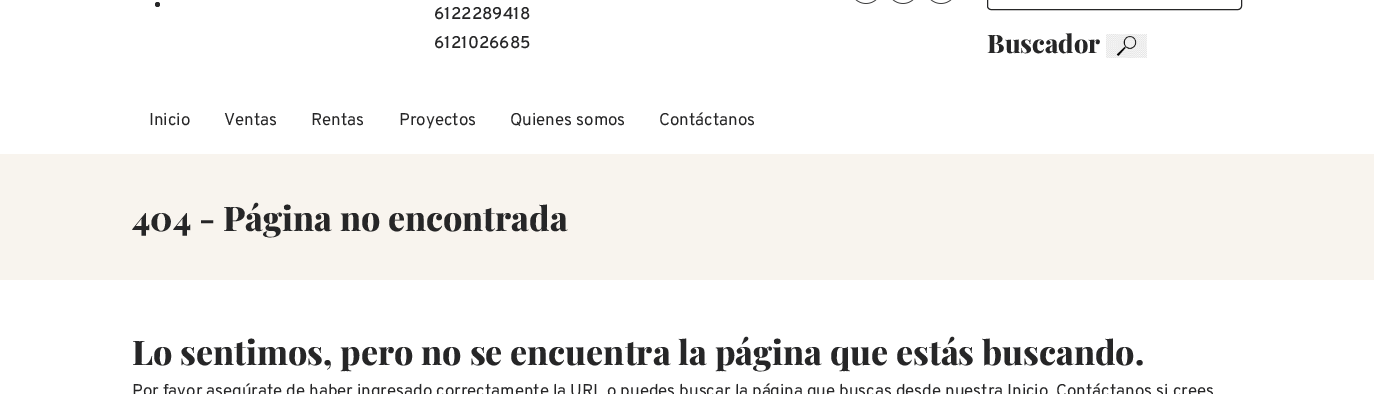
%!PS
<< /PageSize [1374 394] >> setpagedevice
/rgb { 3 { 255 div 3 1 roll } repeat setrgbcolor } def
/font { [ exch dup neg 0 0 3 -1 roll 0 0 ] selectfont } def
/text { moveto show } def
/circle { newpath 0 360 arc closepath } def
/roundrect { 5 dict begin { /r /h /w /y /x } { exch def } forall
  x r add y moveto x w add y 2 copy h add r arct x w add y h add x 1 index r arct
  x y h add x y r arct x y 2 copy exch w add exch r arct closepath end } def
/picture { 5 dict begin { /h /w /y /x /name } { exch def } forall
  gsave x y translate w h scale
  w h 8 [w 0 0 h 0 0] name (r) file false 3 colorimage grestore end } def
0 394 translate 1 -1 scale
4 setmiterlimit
255 255 255 rgb
0 0 1374 394 rectfill
38 38 39 rgb
157.5 4.5 2.5 circle fill
(img_01.rgb) 855 0 22 4 picture
(img_01.rgb) 892 0 22 4 picture
(img_01.rgb) 930 0 22 4 picture
987.5 -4.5 254 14 3.5 roundrect stroke
(img_02.rgb) 1106 34 41 24 picture
248 244 238 rgb
0 154 1374 126 rectfill
/Overpass-Medium 17 font
38 38 39 rgb
(6122289418) 434 19 text
(6121026685) 434 48 text
/PlayfairDisplay-ExtraBold 25.5 font
(Buscador) 987 53 text
/Overpass-Regular 17 font
(Inicio) 149 125 text
(Ventas) 224 125 text
(Rentas) 311 125 text
(Proyectos) 399 125 text
(Quienes somos) 510 125 text
(Contáctanos) 659 125 text
/PlayfairDisplay-ExtraBold 34 font
(404 - Página no encontrada) 132 231 text
(Lo sentimos, pero no se encuentra la página que estás buscando.) 132 365 text
/Overpass-Regular 17 font
(Por favor asegúrate de haber ingresado correctamente la URL o puedes buscar la página que buscas desde nuestra Inicio) 132 396 text
(Contáctanos si crees) 1056 396 text
showpage
